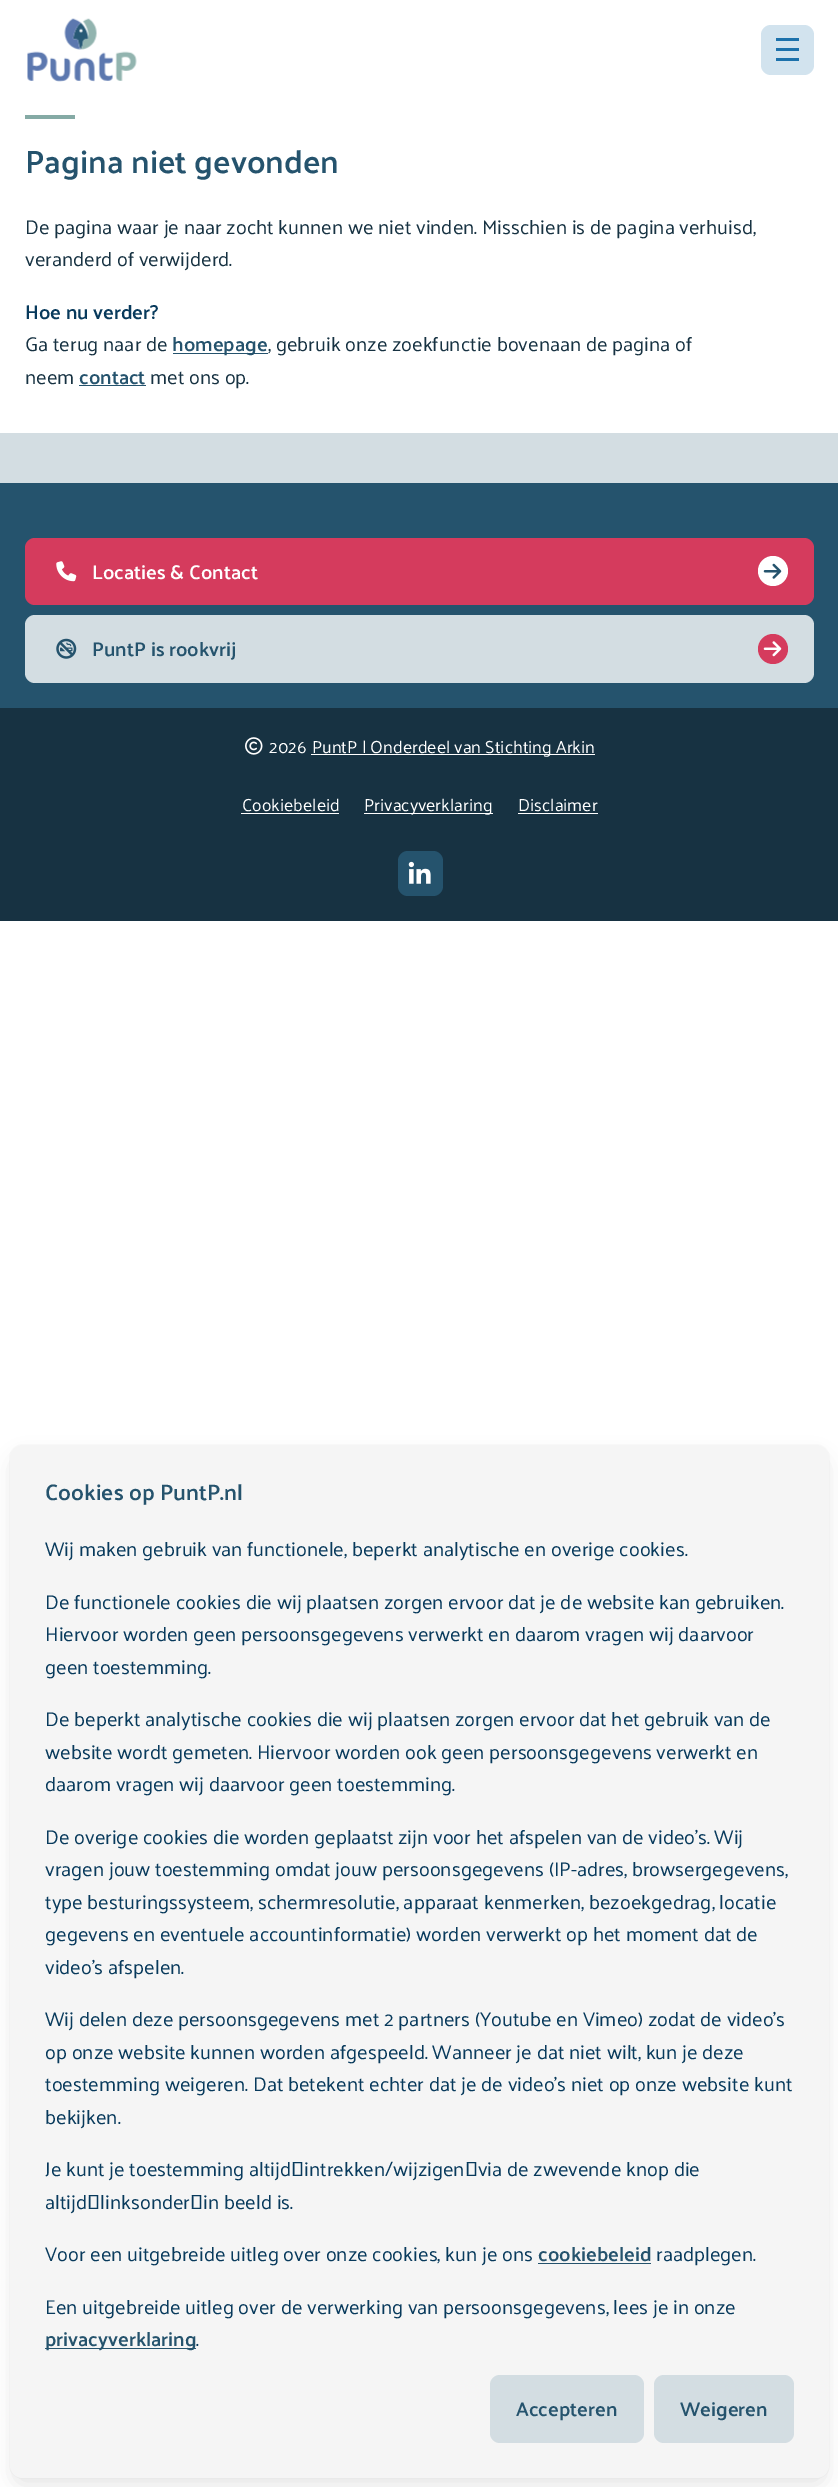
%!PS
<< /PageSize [838 2487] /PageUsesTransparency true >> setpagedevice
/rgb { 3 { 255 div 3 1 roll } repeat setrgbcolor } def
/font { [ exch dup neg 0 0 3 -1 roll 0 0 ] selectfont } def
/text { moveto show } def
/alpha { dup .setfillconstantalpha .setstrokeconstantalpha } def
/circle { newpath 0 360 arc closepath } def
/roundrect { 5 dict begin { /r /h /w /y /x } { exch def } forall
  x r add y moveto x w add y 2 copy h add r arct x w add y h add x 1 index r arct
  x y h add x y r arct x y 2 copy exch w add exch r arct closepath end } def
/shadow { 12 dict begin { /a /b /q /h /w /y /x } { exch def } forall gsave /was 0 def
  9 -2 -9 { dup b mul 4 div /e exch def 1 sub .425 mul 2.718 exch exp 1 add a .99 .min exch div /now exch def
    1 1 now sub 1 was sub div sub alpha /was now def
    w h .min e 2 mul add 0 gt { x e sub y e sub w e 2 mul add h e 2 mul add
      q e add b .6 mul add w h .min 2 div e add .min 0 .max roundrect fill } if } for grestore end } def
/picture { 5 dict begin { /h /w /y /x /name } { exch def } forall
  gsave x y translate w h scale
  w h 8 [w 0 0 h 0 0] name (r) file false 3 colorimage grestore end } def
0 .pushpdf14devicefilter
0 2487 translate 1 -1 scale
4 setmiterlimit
255 255 255 rgb
0 0 838 2487 rectfill
(img_01.rgb) 27 18 110 64 picture
210 227 238 rgb
761 25 53 50 10 roundrect fill
28 113 171 rgb
776 58 23 3 rectfill
776 38 23 3 rectfill
776 48 23 3 rectfill
133 170 165 rgb
25 115 50 4 rectfill
37 83 109 rgb
173 353 95 1 rectfill
79 385 67 1 rectfill
211 221 226 rgb
0 433 838 50 rectfill
37 83 109 rgb
0 483 838 225 rectfill
213 59 93 rgb
25 538 789 67 10 roundrect fill
(img_02.rgb) 56 561 21 21 picture
255 255 255 rgb
773 571 15 circle fill
(img_03.rgb) 763 563 19 16 picture
211 221 226 rgb
25 615 789 68 10 roundrect fill
(img_04.rgb) 56 638 21 21 picture
213 59 93 rgb
773 649 15 circle fill
(img_05.rgb) 763 641 19 16 picture
23 50 66 rgb
0 708 838 213 rectfill
(img_06.rgb) 245 737 18 18 picture
255 255 255 rgb
311 754 284 1 rectfill
241 813 98 1 rectfill
364 813 129 1 rectfill
518 813 80 1 rectfill
37 83 109 rgb
398 851 45 45 10 roundrect fill
(img_07.rgb) 408 861 23 23 picture
250 250 250 rgb
9.5 1444.5 820 1034 13.5 roundrect stroke
10 10 10 rgb
13 1458 813 1027 10 10 0.1 shadow
245 245 245 rgb
10 1445 819 1033 13 roundrect fill
37 83 109 rgb
538 2263 113 1 rectfill
45 2348 151 1 rectfill
211 221 226 rgb
490 2375 154 68 10 roundrect fill
654 2375 140 68 10 roundrect fill
/Palanquin-SemiBold 32.5 font
37 83 109 rgb
(Pagina niet gevonden) 25 173 text
/Palanquin-Regular 20 font
23 50 66 rgb
(De pagina waar je naar zocht kunnen we niet vinden. Misschien is de pagina verhuisd,) 25 234 text
(veranderd of verwijderd.) 25 266 text
/Palanquin-SemiBold 20 font
8 58 92 rgb
(Hoe nu verder?) 25 319 text
/Palanquin-Regular 20 font
23 50 66 rgb
(Ga terug naar de) 25 351 text
/Palanquin-SemiBold 20 font
37 83 109 rgb
(homepage) 172 351 text
/Palanquin-Regular 20 font
23 50 66 rgb
(, gebruik onze zoekfunctie bovenaan de pagina of) 268 351 text
(neem) 25 384 text
/Palanquin-SemiBold 20 font
37 83 109 rgb
(contact) 79 384 text
/Palanquin-Regular 20 font
23 50 66 rgb
(met ons op.) 150 384 text
/Palanquin-SemiBold 20 font
255 255 255 rgb
(Locaties & Contact) 92 579 text
37 83 109 rgb
(PuntP is rookvrij) 92 656 text
/Palanquin-Regular 17.5 font
255 255 255 rgb
(2026) 269 753 text
(PuntP | Onderdeel van Stichting Arkin) 312 753 text
(Cookiebeleid) 242 811 text
(Privacyverklaring) 364 811 text
(Disclaimer) 518 811 text
/Palanquin-SemiBold 22.5 font
37 83 109 rgb
(Cookies op PuntP.nl) 45 1500 text
/Palanquin-Regular 20 font
8 58 92 rgb
(Wij maken gebruik van functionele, beperkt analytische en overige cookies.) 45 1556 text
(De functionele cookies die wij plaatsen zorgen ervoor dat je de website kan gebruiken.) 45 1609 text
(Hiervoor worden geen persoonsgegevens verwerkt en daarom vragen wij daarvoor) 45 1641 text
(geen toestemming.) 45 1674 text
(De beperkt analytische cookies die wij plaatsen zorgen ervoor dat het gebruik van de) 45 1726 text
(website wordt gemeten. Hiervoor worden ook geen persoonsgegevens verwerkt en) 45 1759 text
(daarom vragen wij daarvoor geen toestemming.) 45 1791 text
(De overige cookies die worden geplaatst zijn voor het afspelen van de video's. Wij) 45 1844 text
(vragen jouw toestemming omdat jouw persoonsgegevens \(IP-adres, browsergegevens,) 45 1876 text
(type besturingssysteem, schermresolutie, apparaat kenmerken, bezoekgedrag, locatie) 45 1909 text
(gegevens en eventuele accountinformatie\) worden verwerkt op het moment dat de) 45 1941 text
(video's afspelen.) 45 1974 text
(Wij delen deze persoonsgegevens met 2 partners \(Youtube en Vimeo\) zodat de video's) 45 2026 text
(op onze website kunnen worden afgespeeld. Wanneer je dat niet wilt, kun je deze) 45 2059 text
(toestemming weigeren. Dat betekent echter dat je de video’s niet op onze website kunt) 45 2091 text
(bekijken.) 45 2124 text
(Je kunt je toestemming altijd intrekken/wijzigen via de zwevende knop die) 45 2176 text
(altijd linksonder in beeld is.) 45 2209 text
(Voor een uitgebreide uitleg over onze cookies, kun je ons) 45 2261 text
/Palanquin-SemiBold 20 font
37 83 109 rgb
(cookiebeleid) 538 2261 text
/Palanquin-Regular 20 font
8 58 92 rgb
(raadplegen.) 656 2261 text
(Een uitgebreide uitleg over de verwerking van persoonsgegevens, lees je in onze) 45 2314 text
/Palanquin-SemiBold 20 font
37 83 109 rgb
(privacyverklaring) 45 2346 text
/Palanquin-Regular 20 font
8 58 92 rgb
(.) 196 2346 text
/Palanquin-SemiBold 20 font
37 83 109 rgb
(Accepteren) 516 2416 text
(Weigeren) 680 2416 text
.poppdf14devicefilter showpage
